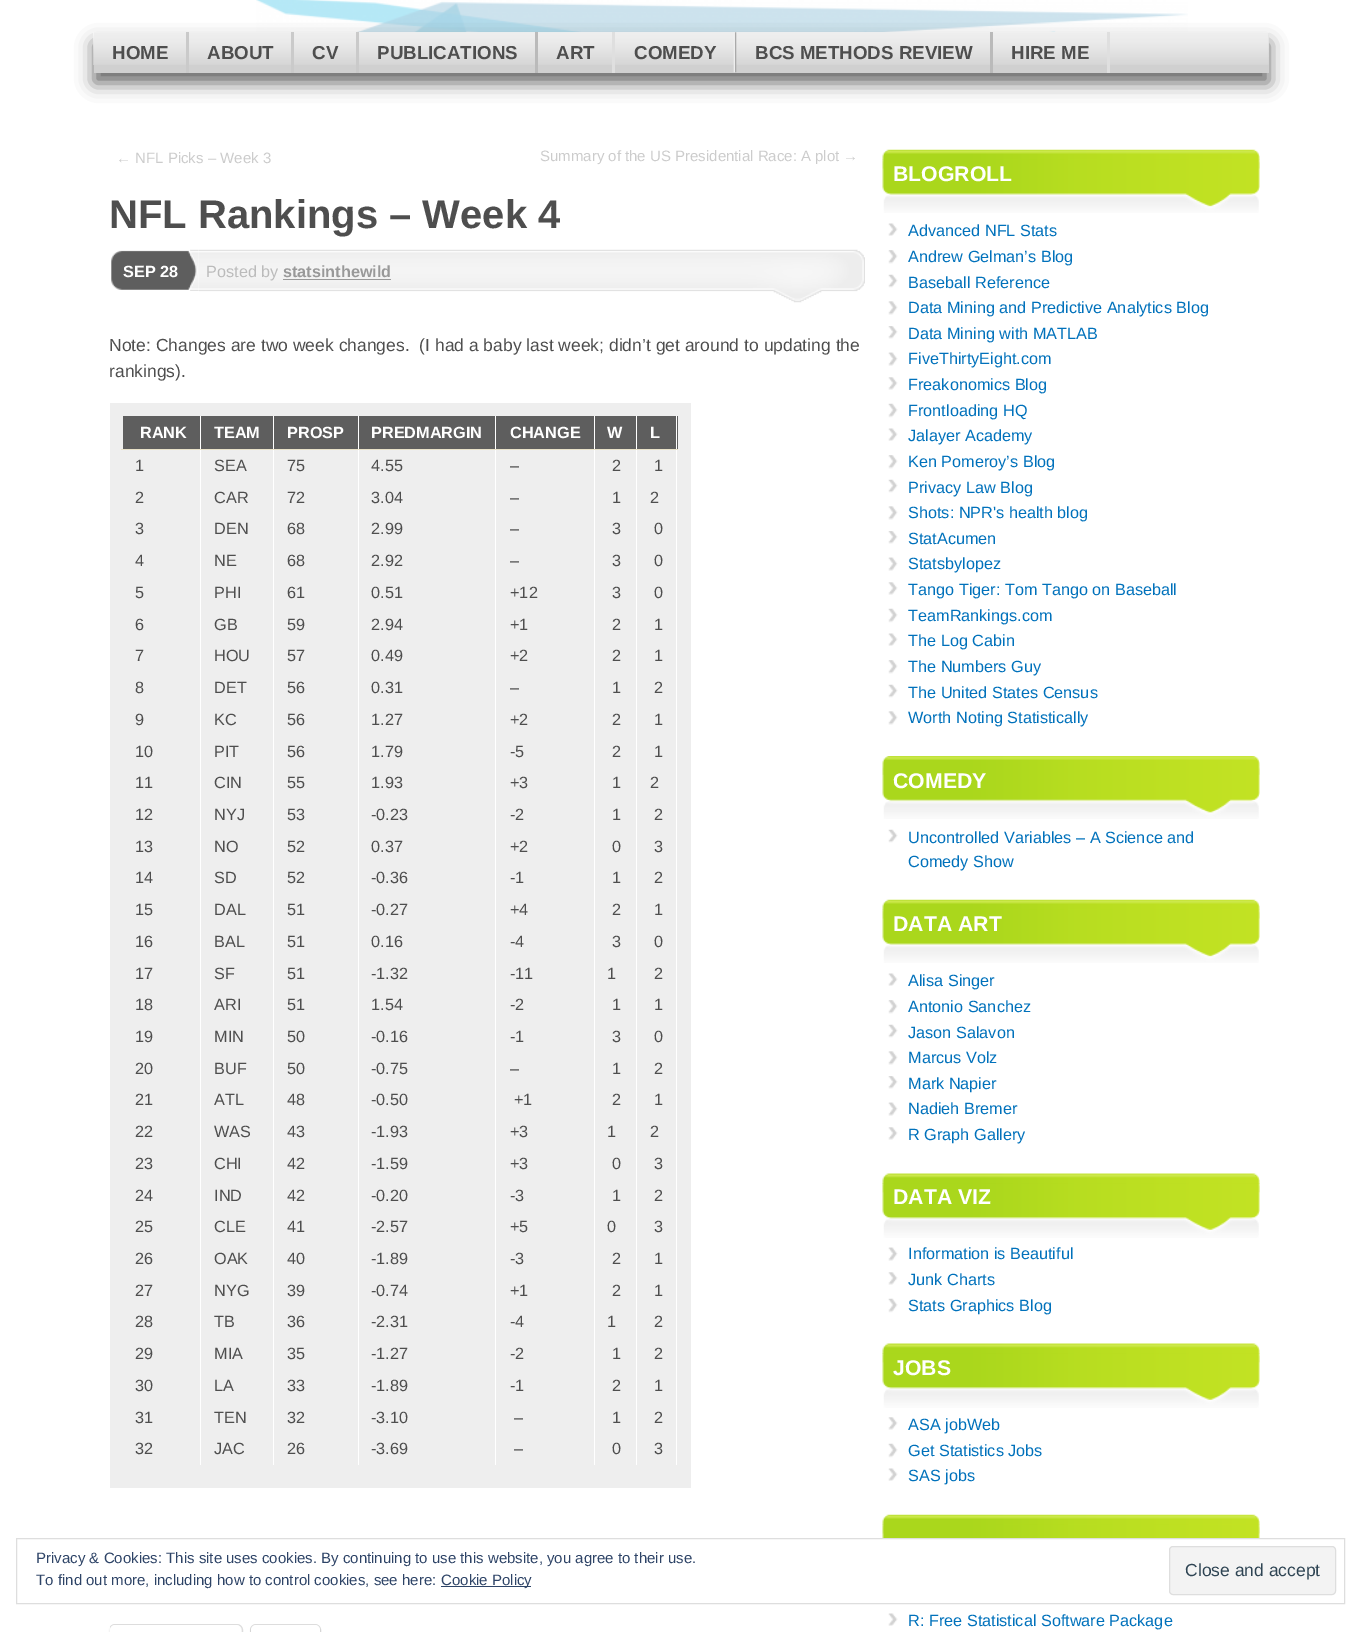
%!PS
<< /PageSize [1361 1632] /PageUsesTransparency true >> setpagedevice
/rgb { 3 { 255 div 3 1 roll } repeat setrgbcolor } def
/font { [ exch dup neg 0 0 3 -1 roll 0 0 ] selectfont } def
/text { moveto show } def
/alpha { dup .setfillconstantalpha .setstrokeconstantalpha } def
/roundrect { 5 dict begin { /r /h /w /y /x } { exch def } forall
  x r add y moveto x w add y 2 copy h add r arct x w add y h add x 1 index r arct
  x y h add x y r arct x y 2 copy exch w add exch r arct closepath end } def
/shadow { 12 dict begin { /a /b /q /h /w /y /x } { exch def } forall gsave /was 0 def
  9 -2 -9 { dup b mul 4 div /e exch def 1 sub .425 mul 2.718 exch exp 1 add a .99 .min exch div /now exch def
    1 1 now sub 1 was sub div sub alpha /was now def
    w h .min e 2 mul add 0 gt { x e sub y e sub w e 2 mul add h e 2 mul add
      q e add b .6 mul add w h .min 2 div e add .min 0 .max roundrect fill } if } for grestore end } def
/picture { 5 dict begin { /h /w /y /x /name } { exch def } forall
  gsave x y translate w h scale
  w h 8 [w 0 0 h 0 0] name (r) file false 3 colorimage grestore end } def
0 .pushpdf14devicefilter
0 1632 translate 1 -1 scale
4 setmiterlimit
255 255 255 rgb
0 0 1361 1632 rectfill
(img_01.rgb) 256 0 932 33 picture
0 0 0 rgb
94 43 1175 40 0 9 0.6 shadow
208 208 208 rgb
94 33 1175 40 rectfill
(img_02.rgb) 93 32 1176 33 picture
202 202 202 rgb
186 32 3 41 rectfill
291 32 3 41 rectfill
356 32 3 41 rectfill
186 186 186 rgb
535 32 3 41 rectfill
223 223 223 rgb
612 32 3 41 rectfill
(img_03.rgb) 733 32 4 41 picture
186 186 186 rgb
990 32 3 41 rectfill
223 223 223 rgb
1107 32 3 41 rectfill
(img_04.rgb) 111 250 13 40 picture
(img_05.rgb) 124 249 75 42 picture
(img_06.rgb) 199 249 666 54 picture
153 153 153 rgb
283 279 108 1 rectfill
238 238 238 rgb
110 403 581 1085 rectfill
94 94 94 rgb
123 416 77 33 rectfill
255 255 255 rgb
636 449 1 1016 rectfill
94 94 94 rgb
637 416 41 33 rectfill
255 255 255 rgb
676 416 1 1049 rectfill
232 225 200 rgb
636 449 42 1 rectfill
255 255 255 rgb
636 416 1 34 rectfill
594 449 1 1016 rectfill
232 225 200 rgb
594 449 44 1 rectfill
255 255 255 rgb
594 416 1 34 rectfill
495 449 1 1016 rectfill
232 225 200 rgb
495 449 100 1 rectfill
255 255 255 rgb
495 416 1 34 rectfill
358 449 1 1016 rectfill
232 225 200 rgb
358 449 138 1 rectfill
255 255 255 rgb
358 416 1 34 rectfill
273 449 1 1016 rectfill
232 225 200 rgb
273 449 86 1 rectfill
255 255 255 rgb
273 416 1 34 rectfill
200 449 1 1016 rectfill
232 225 200 rgb
200 449 74 1 rectfill
255 255 255 rgb
200 416 1 34 rectfill
232 225 200 rgb
121 449 80 1 rectfill
94 94 94 rgb
201 416 72 33 rectfill
274 416 84 33 rectfill
359 416 136 33 rectfill
496 416 98 33 rectfill
595 416 41 33 rectfill
gsave
110 315 755 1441 rectclip
224 224 224 rgb
109.5 1624.5 133 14 5.5 roundrect stroke
grestore
0 0 0 rgb
110 1626 131 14 5 1 0.12 shadow
255 255 255 rgb
110 1625 131 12 5 roundrect fill
224 224 224 rgb
250.5 1624.5 70 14 5.5 roundrect stroke
0 0 0 rgb
251 1626 69 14 5 1 0.12 shadow
255 255 255 rgb
251 1625 69 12 5 roundrect fill
(img_07.rgb) 882 149 378 11 picture
(img_08.rgb) 882 159 378 54 picture
(img_09.rgb) 888 223 10 13 picture
(img_10.rgb) 888 250 10 14 picture
(img_11.rgb) 888 274 10 14 picture
(img_12.rgb) 888 301 10 14 picture
(img_13.rgb) 888 326 10 13 picture
(img_14.rgb) 888 352 10 14 picture
(img_15.rgb) 888 377 10 13 picture
(img_16.rgb) 888 403 10 15 picture
(img_09.rgb) 888 428 10 13 picture
(img_10.rgb) 888 455 10 14 picture
(img_11.rgb) 888 479 10 14 picture
(img_12.rgb) 888 506 10 14 picture
(img_13.rgb) 888 531 10 13 picture
(img_17.rgb) 888 557 10 14 picture
(img_15.rgb) 888 582 10 13 picture
(img_16.rgb) 888 608 10 15 picture
(img_09.rgb) 888 633 10 13 picture
(img_10.rgb) 888 660 10 14 picture
(img_11.rgb) 888 684 10 14 picture
(img_12.rgb) 888 711 10 14 picture
(img_18.rgb) 882 756 378 10 picture
(img_19.rgb) 882 766 378 53 picture
(img_11.rgb) 888 829 10 14 picture
(img_07.rgb) 882 899 378 11 picture
(img_20.rgb) 882 909 378 54 picture
(img_09.rgb) 888 973 10 13 picture
(img_10.rgb) 888 1000 10 14 picture
(img_11.rgb) 888 1024 10 14 picture
(img_12.rgb) 888 1051 10 14 picture
(img_13.rgb) 888 1076 10 13 picture
(img_14.rgb) 888 1102 10 14 picture
(img_15.rgb) 888 1127 10 13 picture
(img_21.rgb) 882 1173 378 11 picture
(img_22.rgb) 882 1183 378 55 picture
(img_14.rgb) 888 1247 10 14 picture
(img_15.rgb) 888 1272 10 13 picture
(img_16.rgb) 888 1298 10 15 picture
(img_21.rgb) 882 1343 378 11 picture
(img_22.rgb) 882 1353 378 55 picture
(img_15.rgb) 888 1417 10 13 picture
(img_16.rgb) 888 1443 10 15 picture
(img_09.rgb) 888 1468 10 13 picture
(img_07.rgb) 882 1514 378 11 picture
(img_23.rgb) 882 1524 378 14 picture
(img_09.rgb) 888 1613 10 13 picture
222 222 222 rgb
16.5 1538.5 1328 65 rectstroke
243 243 243 rgb
1169.5 1546.5 166 48 3.5 roundrect gsave fill grestore
222 222 222 rgb
stroke
46 68 103 rgb
441 1586 90 1 rectfill
/LiberationSans-Bold 18.75 font
78 78 78 rgb
(HOME) 112 59 text
(ABOUT) 207 59 text
(CV) 312 59 text
(PUBLICATIONS) 377 59 text
(ART) 556 59 text
(COMEDY) 634 59 text
(BCS METHODS REVIEW) 755 59 text
(HIRE ME) 1011 59 text
/LiberationSans-Regular 15 font
204 204 204 rgb
(← NFL Picks – Week 3) 116 163 text
(Summary of the US Presidential Race: A plot →) 540 161 text
/LiberationSans-Bold 40 font
78 78 78 rgb
(NFL Rankings – Week 4) 109 228 text
/LiberationSans-Bold 16.25 font
255 255 255 rgb
(SEP 28) 123 277 text
/LiberationSans-Regular 16.25 font
187 187 187 rgb
(Posted by) 206 277 text
/LiberationSans-Bold 16.25 font
153 153 153 rgb
(statsinthewild) 283 277 text
/LiberationSans-Regular 17.5 font
78 78 78 rgb
(Note: Changes are two week changes.  \(I had a baby last week; didn’t get around to updating the) 109 351 text
(rankings\).) 109 377 text
/LiberationSans-Bold 16.25 font
255 255 255 rgb
(RANK) 140 438 text
(TEAM) 214 438 text
(PROSP) 287 438 text
(PREDMARGIN) 371 438 text
(CHANGE) 510 438 text
(W) 607 438 text
(L) 650 438 text
/LiberationSans-Regular 16.25 font
78 78 78 rgb
(1) 135 471 text
(SEA) 214 471 text
(75) 287 471 text
(4.55) 371 471 text
(–) 510 471 text
(2) 612 471 text
(1) 654 471 text
(2) 135 503 text
(CAR) 214 503 text
(72) 287 503 text
(3.04) 371 503 text
(–) 510 503 text
(1) 612 503 text
(2) 650 503 text
(3) 135 534 text
(DEN) 214 534 text
(68) 287 534 text
(2.99) 371 534 text
(–) 510 534 text
(3) 612 534 text
(0) 654 534 text
(4) 135 566 text
(NE) 214 566 text
(68) 287 566 text
(2.92) 371 566 text
(–) 510 566 text
(3) 612 566 text
(0) 654 566 text
(5) 135 598 text
(PHI) 214 598 text
(61) 287 598 text
(0.51) 371 598 text
(+12) 510 598 text
(3) 612 598 text
(0) 654 598 text
(6) 135 630 text
(GB) 214 630 text
(59) 287 630 text
(2.94) 371 630 text
(+1) 510 630 text
(2) 612 630 text
(1) 654 630 text
(7) 135 661 text
(HOU) 214 661 text
(57) 287 661 text
(0.49) 371 661 text
(+2) 510 661 text
(2) 612 661 text
(1) 654 661 text
(8) 135 693 text
(DET) 214 693 text
(56) 287 693 text
(0.31) 371 693 text
(–) 510 693 text
(1) 612 693 text
(2) 654 693 text
(9) 135 725 text
(KC) 214 725 text
(56) 287 725 text
(1.27) 371 725 text
(+2) 510 725 text
(2) 612 725 text
(1) 654 725 text
(10) 135 757 text
(PIT) 214 757 text
(56) 287 757 text
(1.79) 371 757 text
(-5) 510 757 text
(2) 612 757 text
(1) 654 757 text
(11) 135 788 text
(CIN) 214 788 text
(55) 287 788 text
(1.93) 371 788 text
(+3) 510 788 text
(1) 612 788 text
(2) 650 788 text
(12) 135 820 text
(NYJ) 214 820 text
(53) 287 820 text
(-0.23) 371 820 text
(-2) 510 820 text
(1) 612 820 text
(2) 654 820 text
(13) 135 852 text
(NO) 214 852 text
(52) 287 852 text
(0.37) 371 852 text
(+2) 510 852 text
(0) 612 852 text
(3) 654 852 text
(14) 135 883 text
(SD) 214 883 text
(52) 287 883 text
(-0.36) 371 883 text
(-1) 510 883 text
(1) 612 883 text
(2) 654 883 text
(15) 135 915 text
(DAL) 214 915 text
(51) 287 915 text
(-0.27) 371 915 text
(+4) 510 915 text
(2) 612 915 text
(1) 654 915 text
(16) 135 947 text
(BAL) 214 947 text
(51) 287 947 text
(0.16) 371 947 text
(-4) 510 947 text
(3) 612 947 text
(0) 654 947 text
(17) 135 979 text
(SF) 214 979 text
(51) 287 979 text
(-1.32) 371 979 text
(-11) 510 979 text
(1) 607 979 text
(2) 654 979 text
(18) 135 1010 text
(ARI) 214 1010 text
(51) 287 1010 text
(1.54) 371 1010 text
(-2) 510 1010 text
(1) 612 1010 text
(1) 654 1010 text
(19) 135 1042 text
(MIN) 214 1042 text
(50) 287 1042 text
(-0.16) 371 1042 text
(-1) 510 1042 text
(3) 612 1042 text
(0) 654 1042 text
(20) 135 1074 text
(BUF) 214 1074 text
(50) 287 1074 text
(-0.75) 371 1074 text
(–) 510 1074 text
(1) 612 1074 text
(2) 654 1074 text
(21) 135 1105 text
(ATL) 214 1105 text
(48) 287 1105 text
(-0.50) 371 1105 text
(+1) 514 1105 text
(2) 612 1105 text
(1) 654 1105 text
(22) 135 1137 text
(WAS) 214 1137 text
(43) 287 1137 text
(-1.93) 371 1137 text
(+3) 510 1137 text
(1) 607 1137 text
(2) 650 1137 text
(23) 135 1169 text
(CHI) 214 1169 text
(42) 287 1169 text
(-1.59) 371 1169 text
(+3) 510 1169 text
(0) 612 1169 text
(3) 654 1169 text
(24) 135 1201 text
(IND) 214 1201 text
(42) 287 1201 text
(-0.20) 371 1201 text
(-3) 510 1201 text
(1) 612 1201 text
(2) 654 1201 text
(25) 135 1232 text
(CLE) 214 1232 text
(41) 287 1232 text
(-2.57) 371 1232 text
(+5) 510 1232 text
(0) 607 1232 text
(3) 654 1232 text
(26) 135 1264 text
(OAK) 214 1264 text
(40) 287 1264 text
(-1.89) 371 1264 text
(-3) 510 1264 text
(2) 612 1264 text
(1) 654 1264 text
(27) 135 1296 text
(NYG) 214 1296 text
(39) 287 1296 text
(-0.74) 371 1296 text
(+1) 510 1296 text
(2) 612 1296 text
(1) 654 1296 text
(28) 135 1327 text
(TB) 214 1327 text
(36) 287 1327 text
(-2.31) 371 1327 text
(-4) 510 1327 text
(1) 607 1327 text
(2) 654 1327 text
(29) 135 1359 text
(MIA) 214 1359 text
(35) 287 1359 text
(-1.27) 371 1359 text
(-2) 510 1359 text
(1) 612 1359 text
(2) 654 1359 text
(30) 135 1391 text
(LA) 214 1391 text
(33) 287 1391 text
(-1.89) 371 1391 text
(-1) 510 1391 text
(2) 612 1391 text
(1) 654 1391 text
(31) 135 1423 text
(TEN) 214 1423 text
(32) 287 1423 text
(-3.10) 371 1423 text
(–) 514 1423 text
(1) 612 1423 text
(2) 654 1423 text
(32) 135 1454 text
(JAC) 214 1454 text
(26) 287 1454 text
(-3.69) 371 1454 text
(–) 514 1454 text
(0) 612 1454 text
(3) 654 1454 text
/LiberationSans-Bold 21.25 font
255 255 255 rgb
(BLOGROLL) 893 181 text
/LiberationSans-Regular 16.25 font
0 113 187 rgb
(Advanced NFL Stats) 908 236 text
(Andrew Gelman’s Blog) 908 262 text
(Baseball Reference) 908 288 text
(Data Mining and Predictive Analytics Blog) 908 313 text
(Data Mining with MATLAB) 908 339 text
(FiveThirtyEight.com) 908 364 text
(Freakonomics Blog) 908 390 text
(Frontloading HQ) 908 416 text
(Jalayer Academy) 908 441 text
(Ken Pomeroy’s Blog) 908 467 text
(Privacy Law Blog) 908 493 text
(Shots: NPR's health blog) 908 518 text
(StatAcumen) 908 544 text
(Statsbylopez) 908 569 text
(Tango Tiger: Tom Tango on Baseball) 908 595 text
(TeamRankings.com) 908 621 text
(The Log Cabin) 908 646 text
(The Numbers Guy) 908 672 text
(The United States Census) 908 698 text
(Worth Noting Statistically) 908 723 text
/LiberationSans-Bold 21.25 font
255 255 255 rgb
(COMEDY) 893 788 text
/LiberationSans-Regular 16.25 font
0 113 187 rgb
(Uncontrolled Variables – A Science and) 908 843 text
(Comedy Show) 908 867 text
/LiberationSans-Bold 21.25 font
255 255 255 rgb
(DATA ART) 893 931 text
/LiberationSans-Regular 16.25 font
0 113 187 rgb
(Alisa Singer) 908 986 text
(Antonio Sanchez) 908 1012 text
(Jason Salavon) 908 1038 text
(Marcus Volz) 908 1063 text
(Mark Napier) 908 1089 text
(Nadieh Bremer) 908 1114 text
(R Graph Gallery) 908 1140 text
/LiberationSans-Bold 21.25 font
255 255 255 rgb
(DATA VIZ) 893 1204 text
/LiberationSans-Regular 16.25 font
0 113 187 rgb
(Information is Beautiful) 908 1259 text
(Junk Charts) 908 1285 text
(Stats Graphics Blog) 908 1311 text
/LiberationSans-Bold 21.25 font
255 255 255 rgb
(JOBS) 893 1375 text
/LiberationSans-Regular 16.25 font
0 113 187 rgb
(ASA jobWeb) 908 1430 text
(Get Statistics Jobs) 908 1456 text
(SAS jobs) 908 1481 text
(R: Free Statistical Software Package) 908 1626 text
/LiberationSans-Regular 15 font
46 68 103 rgb
(Privacy & Cookies: This site uses cookies. By continuing to use this website, you agree to their use.) 36 1563 text
/LiberationSans-Regular 17.5 font
46 68 83 rgb
(Close and accept) 1185 1576 text
/LiberationSans-Regular 15 font
46 68 103 rgb
(To find out more, including how to control cookies, see here:) 36 1585 text
(Cookie Policy) 441 1585 text
.poppdf14devicefilter showpage
